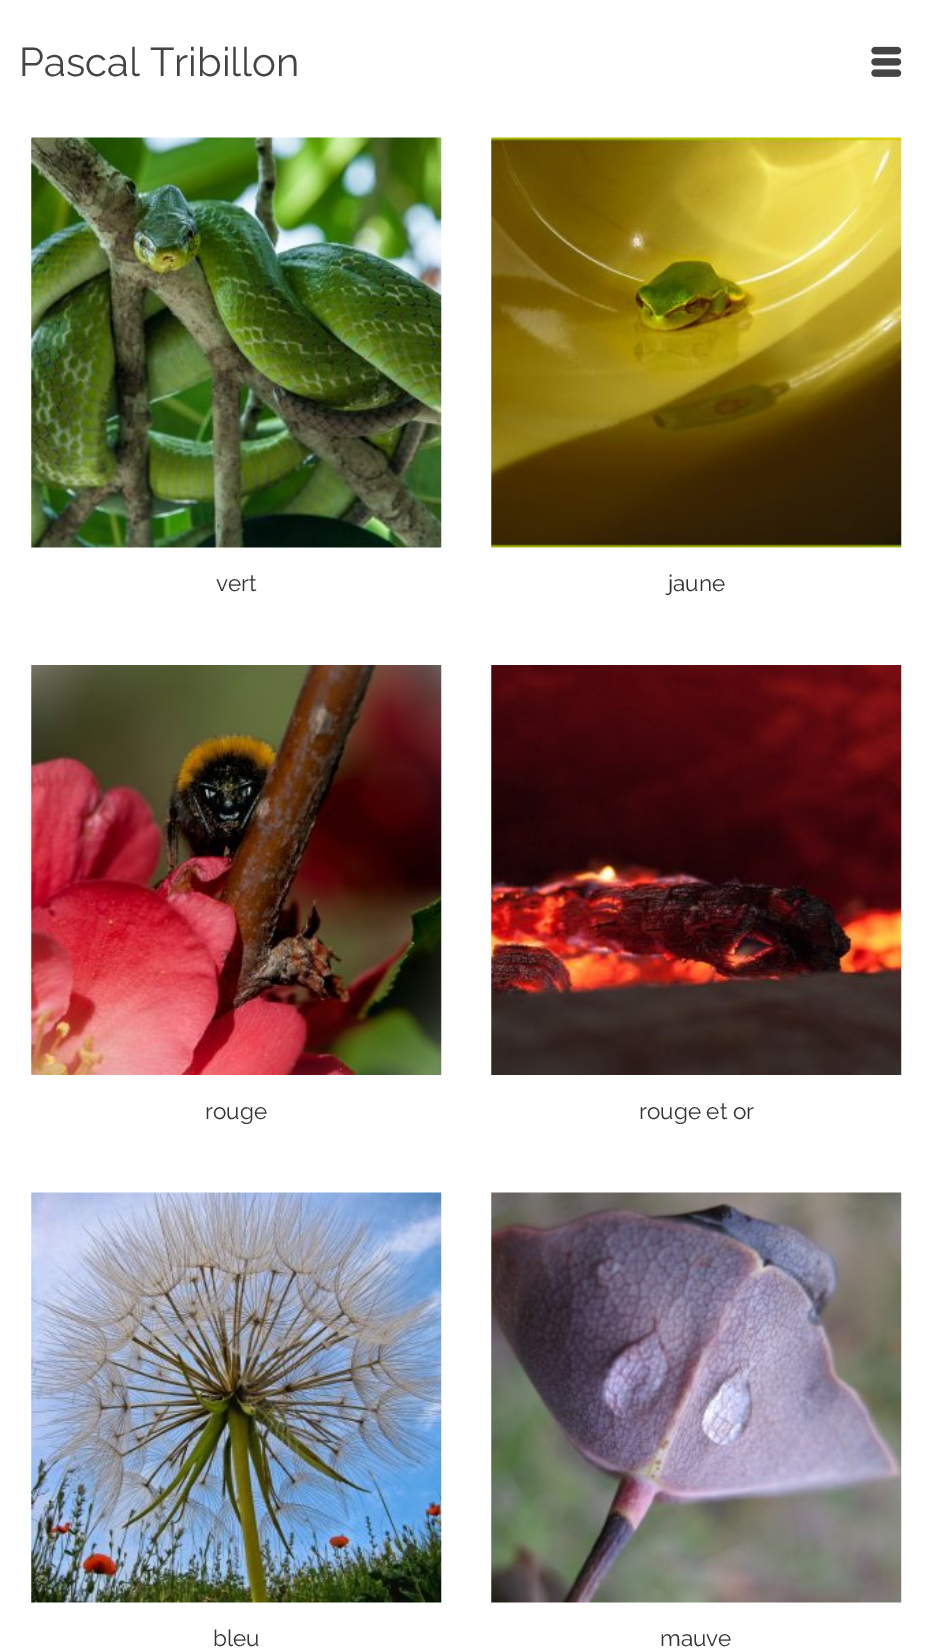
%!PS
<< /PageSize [932 1651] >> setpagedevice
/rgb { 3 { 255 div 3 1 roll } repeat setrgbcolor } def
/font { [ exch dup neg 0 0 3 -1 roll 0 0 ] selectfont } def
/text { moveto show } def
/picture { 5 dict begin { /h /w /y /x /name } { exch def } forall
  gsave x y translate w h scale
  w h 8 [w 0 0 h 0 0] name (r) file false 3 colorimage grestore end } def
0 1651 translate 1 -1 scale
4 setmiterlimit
255 255 255 rgb
0 0 932 1651 rectfill
(img_01.rgb) 871 46 31 31 picture
(img_02.rgb) 31 137 411 411 picture
(img_03.rgb) 491 137 411 411 picture
(img_04.rgb) 31 665 411 410 picture
(img_05.rgb) 491 665 411 410 picture
(img_06.rgb) 31 1192 411 411 picture
(img_07.rgb) 491 1192 411 411 picture
/Raleway-Regular 40 font
68 68 68 rgb
(Pascal Tribillon) 19 76 text
/Raleway-Regular 22.5 font
51 51 51 rgb
(vert) 216 591 text
(jaune) 668 591 text
(rouge) 205 1119 text
(rouge et or) 639 1119 text
/LiberationSans-Regular 18 font
98 95 53 rgb
(O) 198 1404 text
/Raleway-Regular 22.5 font
51 51 51 rgb
(bleu) 213 1646 text
(mauve) 660 1646 text
showpage
